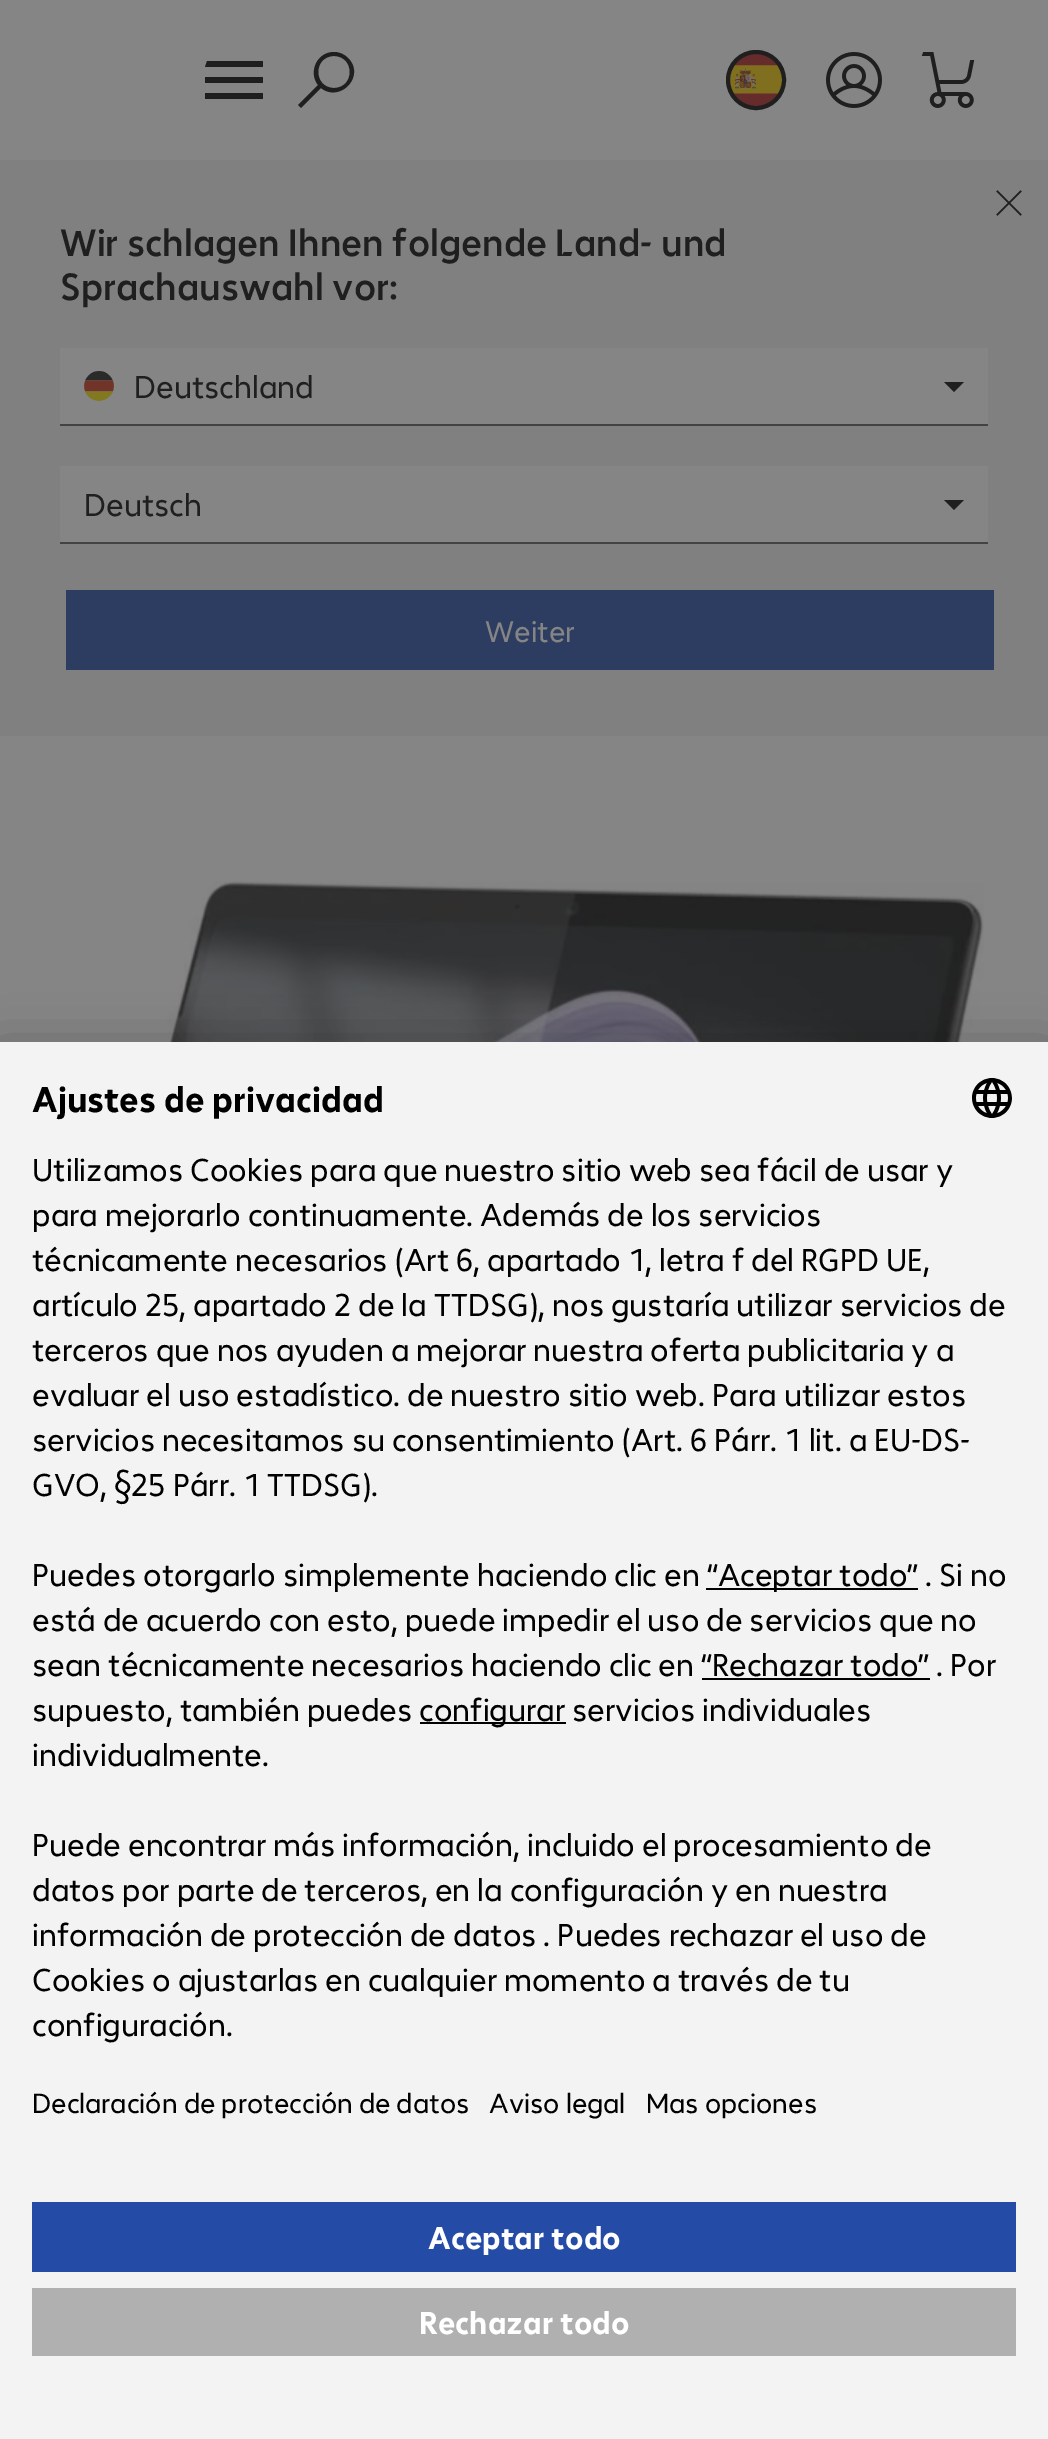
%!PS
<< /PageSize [1048 2439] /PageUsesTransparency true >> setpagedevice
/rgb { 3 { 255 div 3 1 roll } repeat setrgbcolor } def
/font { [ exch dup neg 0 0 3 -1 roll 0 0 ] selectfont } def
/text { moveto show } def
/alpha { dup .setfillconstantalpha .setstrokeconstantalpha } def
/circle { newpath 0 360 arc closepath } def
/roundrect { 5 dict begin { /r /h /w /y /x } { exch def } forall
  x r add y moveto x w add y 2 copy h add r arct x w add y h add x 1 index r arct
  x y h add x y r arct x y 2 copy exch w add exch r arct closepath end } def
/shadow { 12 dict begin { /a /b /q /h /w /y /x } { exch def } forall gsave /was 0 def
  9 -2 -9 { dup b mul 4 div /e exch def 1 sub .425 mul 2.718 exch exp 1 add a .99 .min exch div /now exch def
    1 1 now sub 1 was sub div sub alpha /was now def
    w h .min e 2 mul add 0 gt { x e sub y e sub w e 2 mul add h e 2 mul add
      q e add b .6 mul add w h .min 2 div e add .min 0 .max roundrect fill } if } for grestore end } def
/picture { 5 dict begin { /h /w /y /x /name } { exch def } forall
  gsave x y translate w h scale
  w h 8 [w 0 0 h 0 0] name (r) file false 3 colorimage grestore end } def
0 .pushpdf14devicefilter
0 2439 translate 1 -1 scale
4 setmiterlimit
133 133 133 rgb
0 0 1048 2439 rectfill
31 31 31 rgb
205 93 58 6 rectfill
205 77 58 6 rectfill
207 61 moveto 56 0 rlineto 0 6 rlineto -58 0 rlineto closepath fill
334 52 moveto -17 0 -26 20 -16 33 rcurveto -20 20 rlineto 3 3 rlineto 20 -20 rlineto 19 15 45 -12 27 -30 rcurveto -4 -4 -9 -6 -14 -6 rcurveto closepath 334 88 moveto -21 0 -21 -32 0 -32 rcurveto 21 0 21 32 0 32 rcurveto closepath fill
(img_01.rgb) 726 50 60 60 picture
4 setlinewidth
756 80 28 circle stroke
(img_02.rgb) 826 52 56 56 picture
(img_03.rgb) 921 52 54 56 picture
128 128 128 rgb
0 160 1048 576 rectfill
(img_04.rgb) 996 190 26 26 picture
133 133 133 rgb
60 348 928 76 rectfill
67 67 67 rgb
60 424 928 2 rectfill
(img_05.rgb) 84 371 30 30 picture
31 31 31 rgb
944 382 moveto 20 0 rlineto -10 10 rlineto closepath fill
133 133 133 rgb
60 466 928 76 rectfill
67 67 67 rgb
60 542 928 2 rectfill
31 31 31 rgb
944 500 moveto 20 0 rlineto -10 10 rlineto closepath fill
45 61 97 rgb
66 590 928 80 rectfill
(img_06.rgb) 64 881 920 161 picture
0 0 0 rgb
0 1082 1048 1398 0 28 0.3 shadow
0 1052 1048 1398 0 26 0.22 shadow
243 243 243 rgb
0 1042 1048 1397 rectfill
(img_07.rgb) 972 1078 40 40 picture
0 0 0 rgb
706 1588 212 2 rectfill
702 1678 228 2 rectfill
420 1722 146 2 rectfill
36 76 167 rgb
32 2202 984 70 rectfill
176 176 176 rgb
32 2288 984 68 rectfill
/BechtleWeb-Medium 38.4 font
31 31 31 rgb
(Wir schlagen Ihnen folgende Land- und) 60 256 text
(Sprachauswahl vor:) 60 300 text
/BechtleWeb-Regular 32 font
(Deutschland) 134 398 text
(Deutsch) 84 516 text
/BechtleWeb-Regular 30 font
133 133 133 rgb
(Weiter) 485 642 text
/BechtleWeb-Bold 36 font
0 0 0 rgb
(Ajustes de privacidad) 32 1112 text
/BechtleWeb-Regular 32 font
(Utilizamos Cookies para que nuestro sitio web sea fácil de usar y) 32 1181 text
(para mejorarlo continuamente. Además de los servicios) 32 1226 text
(técnicamente necesarios \(Art 6, apartado 1, letra f del RGPD UE,) 32 1271 text
(artículo 25, apartado 2 de la TTDSG\), nos gustaría utilizar servicios de) 32 1316 text
(terceros que nos ayuden a mejorar nuestra oferta publicitaria y a) 32 1361 text
(evaluar el uso estadístico. de nuestro sitio web. Para utilizar estos) 32 1406 text
(servicios necesitamos su consentimiento \(Art. 6 Párr. 1 lit. a EU-DS-) 32 1451 text
(GVO, §25 Párr. 1 TTDSG\).) 32 1496 text
(Puedes otorgarlo simplemente haciendo clic en) 32 1586 text
(“Aceptar todo” . Si no) 707 1586 text
(está de acuerdo con esto, puede impedir el uso de servicios que no) 32 1631 text
(sean técnicamente necesarios haciendo clic en “Rechazar todo” . Por) 32 1676 text
(supuesto, también puedes) 32 1721 text
(configurar servicios individuales) 419 1721 text
(individualmente.) 32 1766 text
(Puede encontrar más información, incluido el procesamiento de) 32 1856 text
(datos por parte de terceros, en la configuración y en nuestra) 32 1901 text
(información de protección de datos . Puedes rechazar el uso de) 32 1946 text
(Cookies o ajustarlas en cualquier momento a través de tu) 32 1991 text
(configuración.) 32 2036 text
/BechtleWeb-Regular 28 font
(Declaración de protección de datos) 32 2113 text
(Aviso legal) 489 2113 text
(Mas opciones) 646 2113 text
/BechtleWeb-Bold 32 font
255 255 255 rgb
(Aceptar todo) 428 2249 text
(Rechazar todo) 419 2334 text
.poppdf14devicefilter showpage
